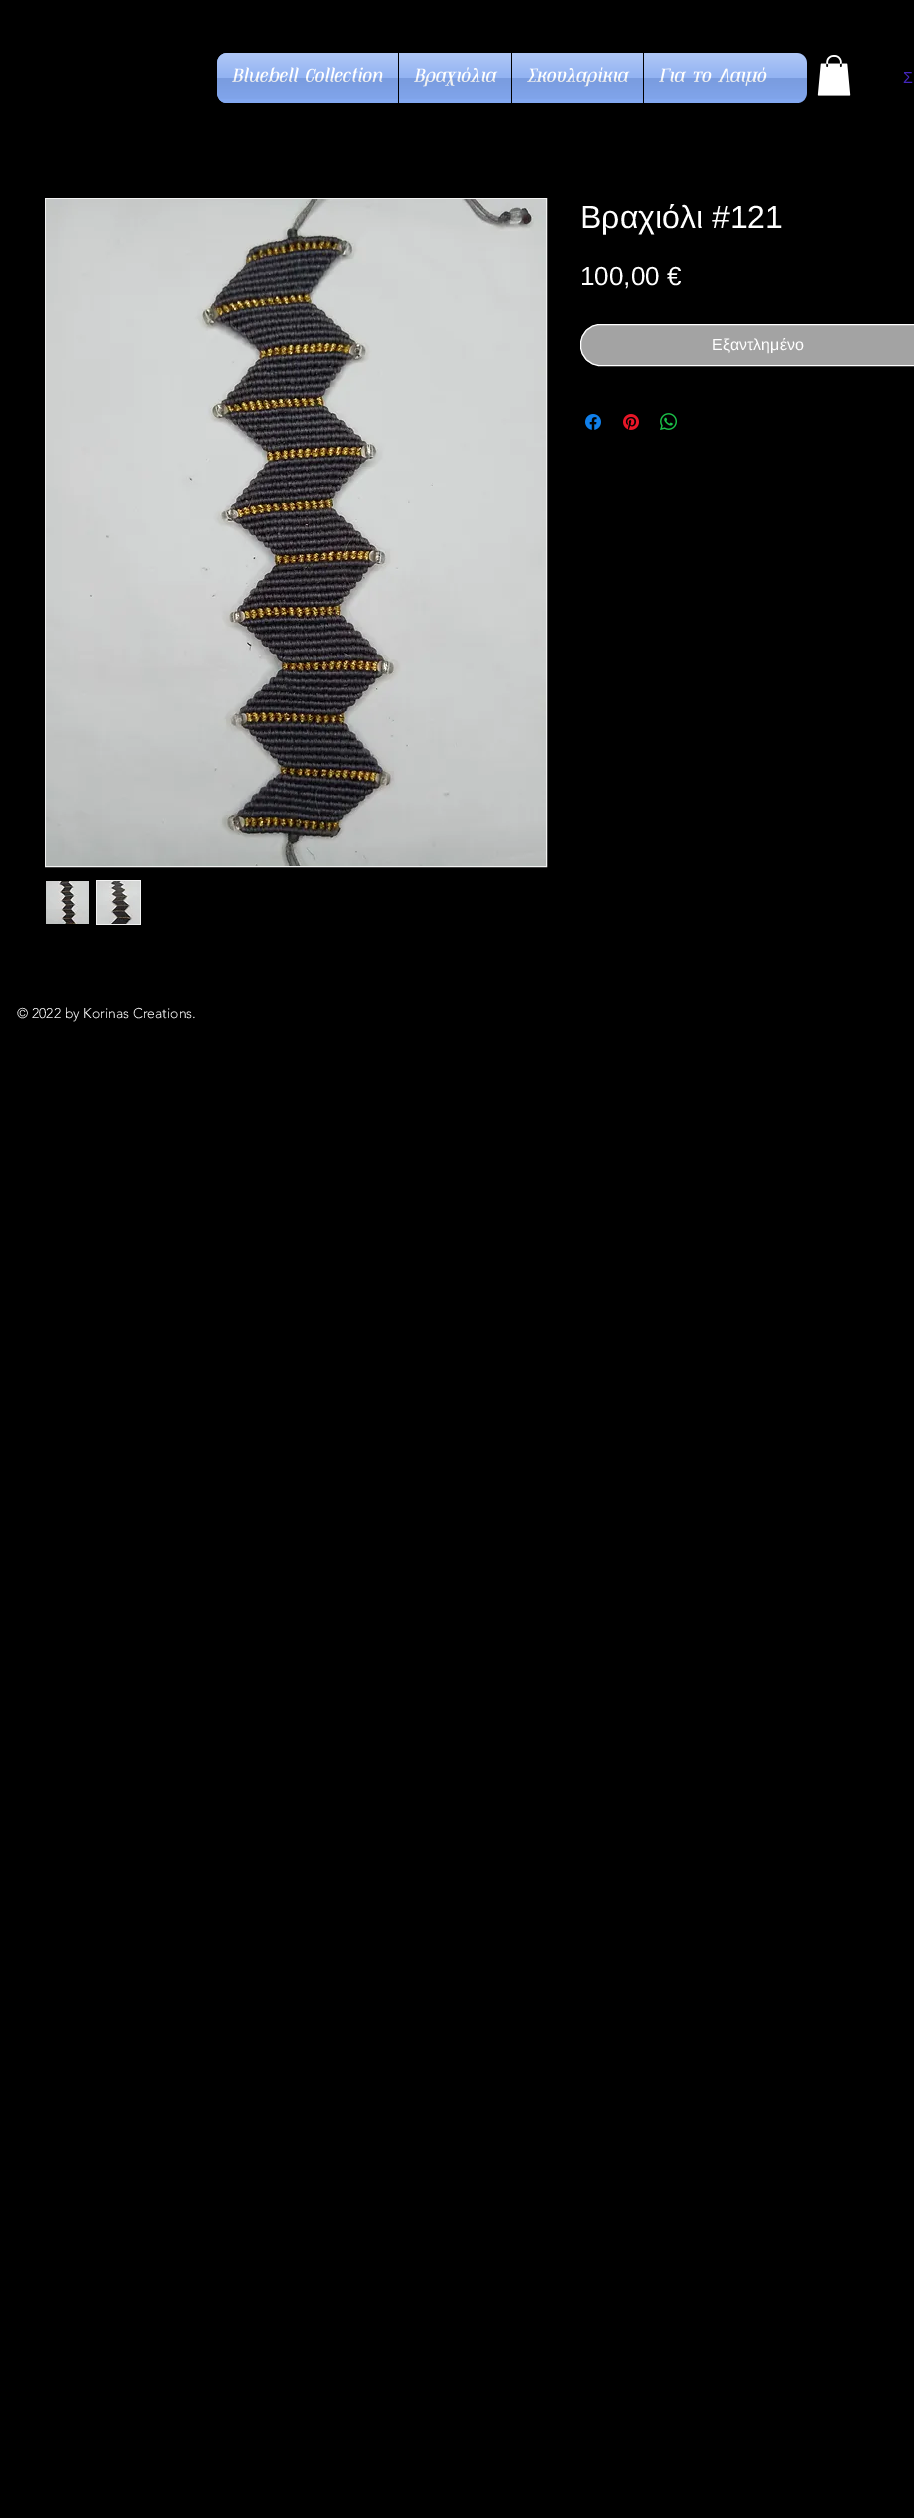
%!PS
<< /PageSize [914 2518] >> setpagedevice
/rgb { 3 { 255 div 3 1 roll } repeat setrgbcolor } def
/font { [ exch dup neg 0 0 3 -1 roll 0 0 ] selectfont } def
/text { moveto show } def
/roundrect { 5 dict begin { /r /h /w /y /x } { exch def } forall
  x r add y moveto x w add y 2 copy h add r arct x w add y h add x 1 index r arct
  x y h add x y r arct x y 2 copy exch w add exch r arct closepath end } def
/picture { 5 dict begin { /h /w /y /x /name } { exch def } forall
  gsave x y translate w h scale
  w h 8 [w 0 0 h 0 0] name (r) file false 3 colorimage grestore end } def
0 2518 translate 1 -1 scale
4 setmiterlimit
0 0 0 rgb
0 0 914 2518 rectfill
131 168 240 rgb
217 53 590 50 10 roundrect fill
(img_01.rgb) 217 53 590 46 picture
227 53 moveto 171 0 rlineto 0 50 rlineto -171 0 rlineto -5.5 0 -10 -4.5 -10 -10 rcurveto 0 -30 rlineto 0 -5.5 4.5 -10 10 -10 rcurveto closepath fill
399 53 112 46 rectfill
0 0 0 rgb
398 53 1 50 rectfill
131 168 240 rgb
512 53 131 46 rectfill
0 0 0 rgb
511 53 1 50 rectfill
131 168 240 rgb
644 53 137 46 rectfill
0 0 0 rgb
643 53 1 50 rectfill
(img_06.rgb) 817 55 34 41 picture
242 242 242 rgb
45.5 198.5 501 668 rectstroke
(img_07.rgb) 46 199 500 667 picture
(img_08.rgb) 46 881 43 43 picture
96 880 45 45 rectfill
(img_09.rgb) 97 881 43 43 picture
163 163 163 rgb
580.5 324.5 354 41 19.5 roundrect gsave fill grestore
255 255 255 rgb
stroke
(img_10.rgb) 585 414 16 16 picture
(img_11.rgb) 623 414 16 16 picture
(img_12.rgb) 660 413 17 17 picture
/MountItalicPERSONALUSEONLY-Bold 19 font
(Bluebell Collection) 232 82 text
(img_02.rgb) 217 53 181 46 picture
(Βραχιόλια) 414 82 text
(img_03.rgb) 399 53 112 46 picture
(Σκουλαρίκια) 527 82 text
(img_04.rgb) 512 53 131 46 picture
(Για το Λαιμό) 659 82 text
(img_05.rgb) 644 53 137 46 picture
/LiberationSans-Regular 16 font
68 38 189 rgb
(Σ) 903 83 text
/LiberationSans-Regular 32 font
255 255 255 rgb
(Βραχιόλι #121) 580 228 text
/LiberationSans-Regular 26 font
(100,00 €) 580 285 text
/LiberationSans-Regular 16 font
(Εξαντλημένο) 712 350 text
/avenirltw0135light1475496-Light 14 font
(© 2022 by Korinas Creations.) 17 1018 text
showpage
